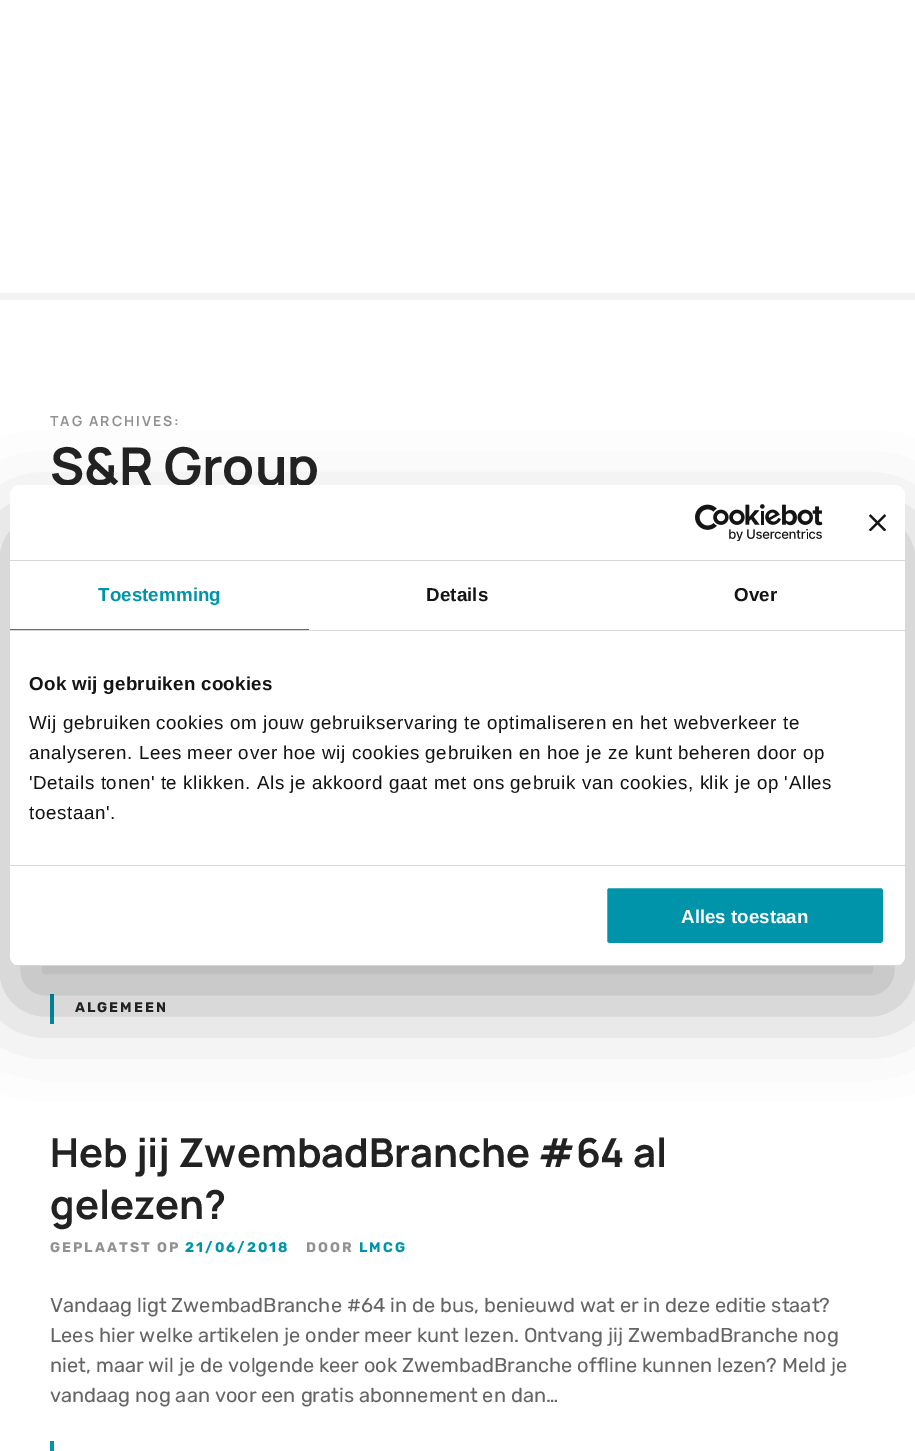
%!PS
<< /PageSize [915 1451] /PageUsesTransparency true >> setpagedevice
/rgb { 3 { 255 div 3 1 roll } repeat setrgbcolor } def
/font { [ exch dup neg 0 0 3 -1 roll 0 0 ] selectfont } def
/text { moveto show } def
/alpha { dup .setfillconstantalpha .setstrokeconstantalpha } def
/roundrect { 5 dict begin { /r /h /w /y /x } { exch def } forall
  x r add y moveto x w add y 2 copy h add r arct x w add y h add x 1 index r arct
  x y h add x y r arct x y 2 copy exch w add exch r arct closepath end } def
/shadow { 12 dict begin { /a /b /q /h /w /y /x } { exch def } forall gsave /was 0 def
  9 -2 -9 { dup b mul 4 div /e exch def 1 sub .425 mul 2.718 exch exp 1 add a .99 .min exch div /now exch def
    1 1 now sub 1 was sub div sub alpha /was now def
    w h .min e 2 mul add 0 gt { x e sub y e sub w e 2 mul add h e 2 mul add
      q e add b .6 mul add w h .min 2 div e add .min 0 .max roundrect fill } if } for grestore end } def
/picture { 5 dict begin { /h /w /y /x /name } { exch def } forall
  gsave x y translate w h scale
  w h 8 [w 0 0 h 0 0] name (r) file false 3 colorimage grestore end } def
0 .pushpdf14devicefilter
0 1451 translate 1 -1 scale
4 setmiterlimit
255 255 255 rgb
0 0 915 1451 rectfill
242 242 242 rgb
0 293 915 7 rectfill
0 148 170 rgb
50 994 4 30 rectfill
50 1441 4 10 rectfill
0 0 0 rgb
10 525 895 481 10 42.5 0.3 shadow
/Manrope-Bold 14 font
145 145 145 rgb
50 426 moveto 2 0 (TAG ARCHIVES:) ashow
/Manrope-Bold 52 font
34 34 34 rgb
(S&R Group) 50 485 text
/Rubik-Bold 14 font
75 1012 moveto 2 0 (ALGEMEEN) ashow
/Manrope-Bold 40 font
(Heb jij ZwembadBranche #64 al) 50 1167 text
(gelezen?) 50 1219 text
/Rubik-Bold 14 font
145 145 145 rgb
50 1252 moveto 2 0 (GEPLAATST OP) ashow
0 148 170 rgb
185 1252 moveto 2 0 (21/06/2018) ashow
145 145 145 rgb
306 1252 moveto 2 0 (DOOR) ashow
0 148 170 rgb
359 1252 moveto 2 0 (LMCG) ashow
/Rubik-Regular 20 font
100 100 100 rgb
(Vandaag ligt ZwembadBranche #64 in de bus, benieuwd wat er in deze editie staat?) 50 1312 text
(Lees hier welke artikelen je onder meer kunt lezen. Ontvang jij ZwembadBranche nog) 50 1342 text
(niet, maar wil je de volgende keer ook ZwembadBranche offline kunnen lezen? Meld je) 50 1372 text
(vandaag nog aan voor een gratis abonnement en dan…) 50 1402 text
255 255 255 rgb
10 485 895 481 10 roundrect fill
214 214 214 rgb
10 560 895 1 rectfill
(img_01.rgb) 695 504 128 37 picture
(img_02.rgb) 869 514 17 17 picture
10 630 895 1 rectfill
0 148 170 rgb
10 629 299 1 rectfill
/LiberationSans-Bold 18.75 font
98 601 moveto 0.1 0 (Toestemming) ashow
20 20 20 rgb
426 601 moveto 0.1 0 (Details) ashow
734 601 moveto 0.1 0 (Over) ashow
214 214 214 rgb
10 865 895 1 rectfill
20 20 20 rgb
29 690 moveto 0.3 0 (Ook wij gebruiken cookies) ashow
/LiberationSans-Regular 18.75 font
29 729 moveto 0.62 0 (Wij gebruiken cookies om jouw gebruikservaring te optimaliseren en het webverkeer te) ashow
29 759 moveto 0.62 0 (analyseren. Lees meer over hoe wij cookies gebruiken en hoe je ze kunt beheren door op) ashow
29 789 moveto 0.62 0 ('Details tonen' te klikken. Als je akkoord gaat met ons gebruik van cookies, klik je op 'Alles) ashow
29 819 moveto 0.62 0 (toestaan'.) ashow
gsave
10 485 895 481 10 roundrect clip newpath
214 214 214 rgb
10 965 895 1 rectfill
grestore
0 148 170 rgb
605.5 886.5 279 58 3.5 roundrect gsave fill grestore
255 255 255 rgb
3 setlinewidth
stroke
/LiberationSans-Bold 18.75 font
(Alles toestaan) 681 923 text
.poppdf14devicefilter showpage
